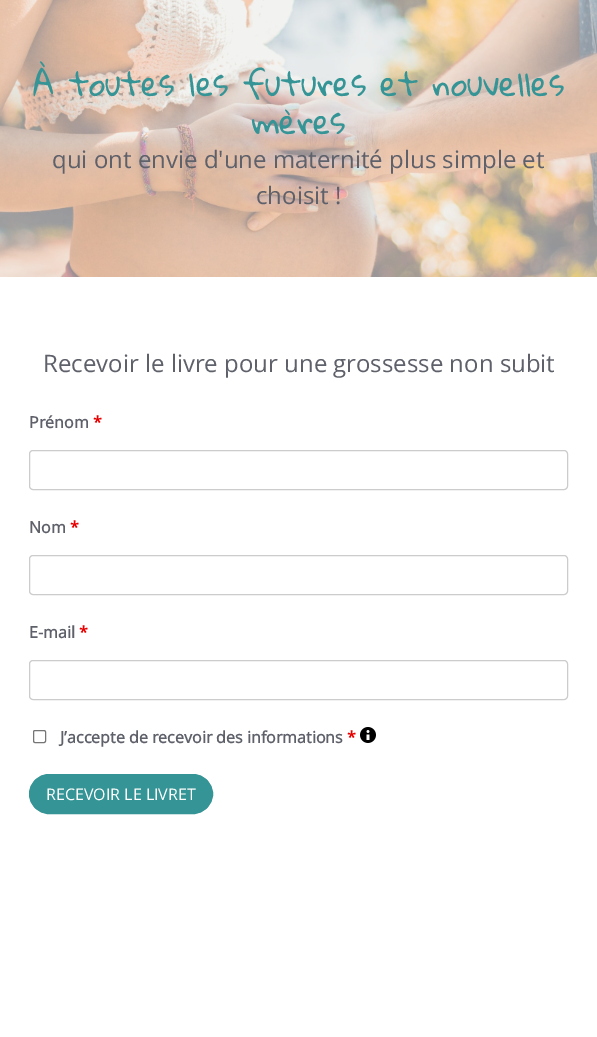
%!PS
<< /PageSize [597 1037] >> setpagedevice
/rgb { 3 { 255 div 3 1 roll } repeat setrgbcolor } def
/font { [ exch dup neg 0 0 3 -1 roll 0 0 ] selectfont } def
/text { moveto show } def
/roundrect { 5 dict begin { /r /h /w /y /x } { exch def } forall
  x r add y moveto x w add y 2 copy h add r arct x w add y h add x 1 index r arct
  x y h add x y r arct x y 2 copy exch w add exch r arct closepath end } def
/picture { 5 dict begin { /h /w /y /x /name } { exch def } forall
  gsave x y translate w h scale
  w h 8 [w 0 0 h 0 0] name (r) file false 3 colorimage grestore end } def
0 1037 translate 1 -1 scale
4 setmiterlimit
255 255 255 rgb
0 0 597 1037 rectfill
(img_01.rgb) 0 0 597 277 picture
204 204 204 rgb
29.5 450.5 538 39 3.5 roundrect stroke
29.5 555.5 538 39 3.5 roundrect stroke
29.5 660.5 538 39 3.5 roundrect stroke
118 118 118 rgb
33.5 730.5 12 12 1.5 roundrect stroke
(img_02.rgb) 360 727 16 16 picture
53 148 149 rgb
29.5 774.5 183 39 19.5 roundrect gsave fill grestore
stroke
/GloriaHallelujah-Regular 32 font
(À toutes les futures et nouvelles) 33 96 text
(mères) 252 134 text
/OpenSans-Regular 24 font
94 96 106 rgb
(qui ont envie d'une maternité plus simple et) 52 168 text
(choisit !) 256 204 text
(Recevoir le livre pour une grossesse non subit) 43 372 text
/OpenSans-Bold 16 font
(Prénom) 29 428 text
232 0 0 rgb
(*) 93 428 text
94 96 106 rgb
(Nom) 29 533 text
232 0 0 rgb
(*) 70 533 text
94 96 106 rgb
(E-mail) 29 638 text
232 0 0 rgb
(*) 79 638 text
94 96 106 rgb
(J’accepte de recevoir des informations) 60 743 text
232 0 0 rgb
(*) 347 743 text
/OpenSans-Regular 16 font
255 255 255 rgb
(RECEVOIR LE LIVRET) 46 800 text
showpage
